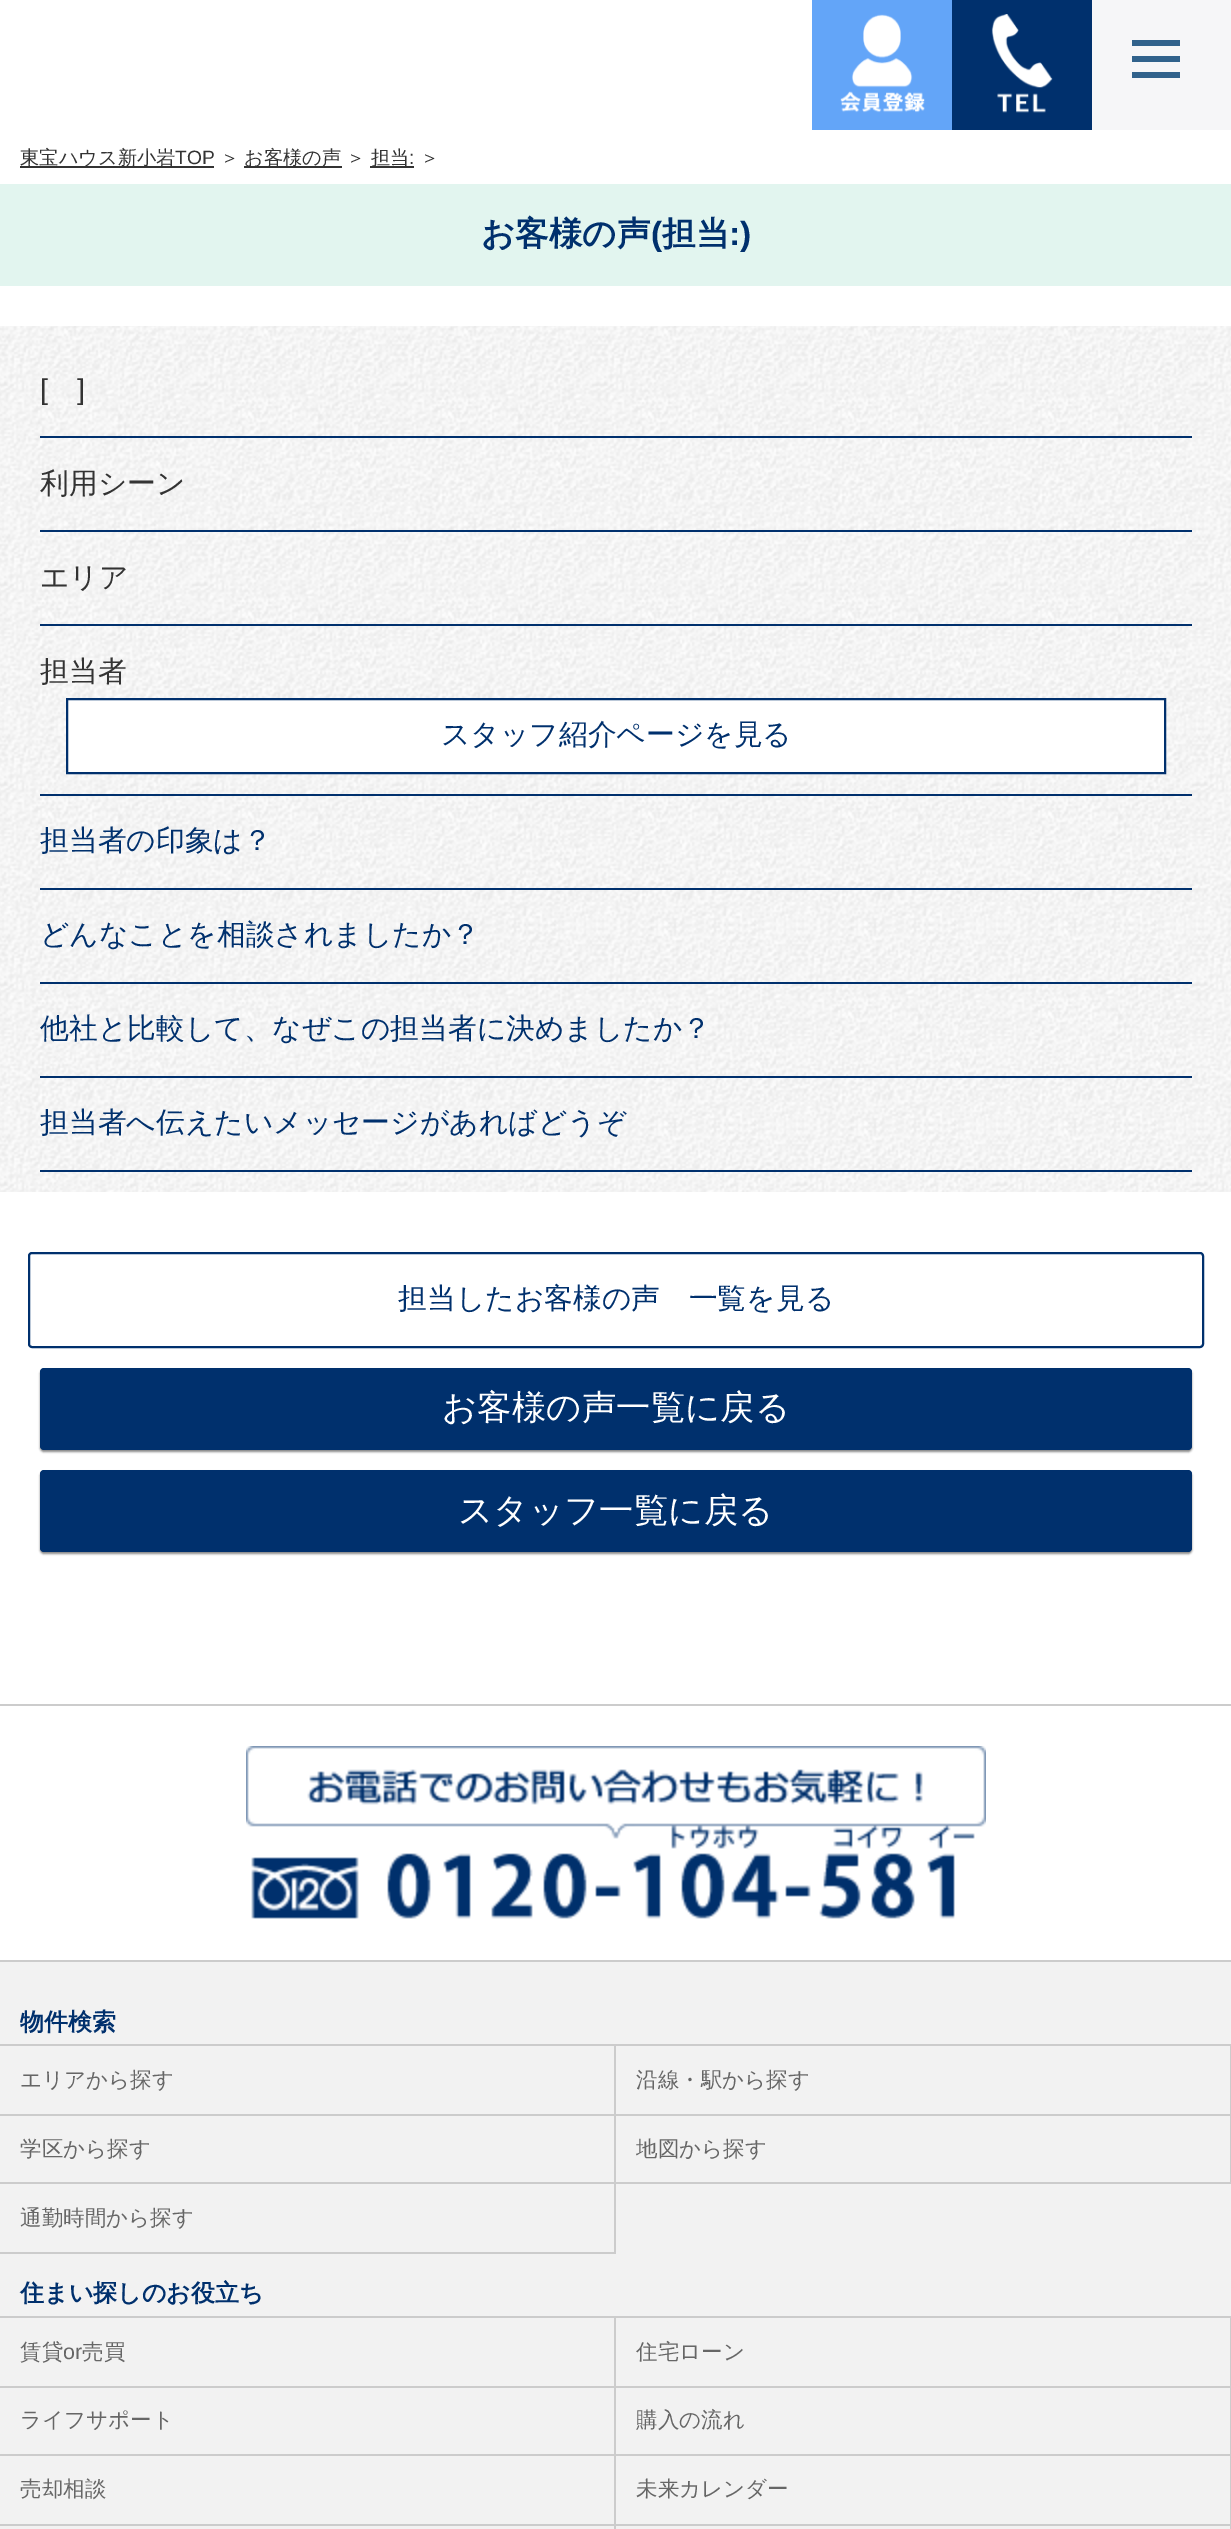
%!PS
<< /PageSize [1231 2529] /PageUsesTransparency true >> setpagedevice
/rgb { 3 { 255 div 3 1 roll } repeat setrgbcolor } def
/font { [ exch dup neg 0 0 3 -1 roll 0 0 ] selectfont } def
/text { moveto show } def
/alpha { dup .setfillconstantalpha .setstrokeconstantalpha } def
/roundrect { 5 dict begin { /r /h /w /y /x } { exch def } forall
  x r add y moveto x w add y 2 copy h add r arct x w add y h add x 1 index r arct
  x y h add x y r arct x y 2 copy exch w add exch r arct closepath end } def
/shadow { 12 dict begin { /a /b /q /h /w /y /x } { exch def } forall gsave /was 0 def
  9 -2 -9 { dup b mul 4 div /e exch def 1 sub .425 mul 2.718 exch exp 1 add a .99 .min exch div /now exch def
    1 1 now sub 1 was sub div sub alpha /was now def
    w h .min e 2 mul add 0 gt { x e sub y e sub w e 2 mul add h e 2 mul add
      q e add b .6 mul add w h .min 2 div e add .min 0 .max roundrect fill } if } for grestore end } def
/picture { 5 dict begin { /h /w /y /x /name } { exch def } forall
  gsave x y translate w h scale
  w h 8 [w 0 0 h 0 0] name (r) file false 3 colorimage grestore end } def
0 .pushpdf14devicefilter
0 2529 translate 1 -1 scale
4 setmiterlimit
255 255 255 rgb
0 0 1231 2529 rectfill
99 165 248 rgb
812 0 140 130 rectfill
(img_01.rgb) 840 14 85 99 picture
0 48 109 rgb
952 0 140 130 rectfill
(img_02.rgb) 991 14 62 99 picture
246 246 248 rgb
1092 0 139 130 rectfill
49 98 140 rgb
1132 40 48 6 rectfill
1132 56 48 6 rectfill
1132 72 48 6 rectfill
51 51 51 rgb
20 166 194 2 rectfill
244 166 98 2 rectfill
370 166 44 2 rectfill
226 245 239 rgb
0 184 1231 102 rectfill
(img_03.rgb) 0 326 1231 866 picture
0 48 109 rgb
40 436 1152 2 rectfill
40 530 1152 2 rectfill
40 624 1152 2 rectfill
40 794 1152 2 rectfill
255 255 255 rgb
67 699 moveto 1098 0 rlineto 0 74 rlineto -1098 0 rlineto closepath gsave fill grestore
0 48 109 rgb
2 setlinewidth
stroke
40 888 1152 2 rectfill
40 982 1152 2 rectfill
40 1076 1152 2 rectfill
40 1170 1152 2 rectfill
29 1253 1174 94 3 roundrect stroke
136 136 136 rgb
40 1370 1152 82 4 1 1 shadow
0 48 109 rgb
40 1368 1152 82 4 roundrect fill
136 136 136 rgb
40 1472 1152 82 4 1 1 shadow
0 48 109 rgb
40 1470 1152 82 4 roundrect fill
204 204 204 rgb
0 1704 1231 2 rectfill
(img_04.rgb) 246 1746 740 173 picture
242 242 242 rgb
0 1962 1231 567 rectfill
204 204 204 rgb
0 1960 1231 2 rectfill
0 2044 1231 2 rectfill
614 2046 2 208 rectfill
0 2114 616 2 rectfill
1230 2046 1 138 rectfill
616 2114 615 2 rectfill
0 2182 1231 2 rectfill
0 2252 616 2 rectfill
0 2316 1231 2 rectfill
614 2318 2 211 rectfill
0 2386 616 2 rectfill
1230 2318 1 211 rectfill
616 2386 615 2 rectfill
0 2454 1231 2 rectfill
0 2524 1231 2 rectfill
/WenQuanYiZenHei-Medium 19.25 font
51 51 51 rgb
(東宝ハウス新小岩) 20 164 text
/LiberationSans-Regular 19.25 font
(TOP) 175 164 text
/WenQuanYiZenHei-Medium 19.25 font
(＞) 220 164 text
(お客様の声) 244 164 text
(＞) 346 164 text
(担当) 371 164 text
/LiberationSans-Regular 19.25 font
(:) 409 164 text
/WenQuanYiZenHei-Medium 19.25 font
(＞) 420 164 text
/WenQuanYiZenHei-Bold 33.5 font
0 48 109 rgb
(お客様の声) 481 245 text
/LiberationSans-Bold 33.5 font
(\() 651 245 text
/WenQuanYiZenHei-Bold 33.5 font
(担当) 662 245 text
/LiberationSans-Bold 33.5 font
(:\)) 729 245 text
/LiberationSans-Regular 28.8 font
51 51 51 rgb
([) 40 399 text
(]) 77 399 text
/WenQuanYiZenHei-Medium 28.8 font
(利用シーン) 40 493 text
(エリア) 40 587 text
(担当者) 40 681 text
0 48 109 rgb
(スタッフ紹介ページを見る) 441 744 text
(担当者の印象は？) 40 850 text
(どんなことを相談されましたか？) 40 944 text
(他社と比較して、なぜこの担当者に決めましたか？) 40 1038 text
(担当者へ伝えたいメッセージがあればどうぞ) 40 1132 text
(担当したお客様の声　一覧を見る) 398 1308 text
/WenQuanYiZenHei-Medium 34.5 font
255 255 255 rgb
(お客様の声一覧に戻る) 442 1419 text
(スタッフ一覧に戻る) 458 1522 text
/WenQuanYiZenHei-Bold 24 font
0 48 109 rgb
(物件検索) 20 2030 text
/WenQuanYiZenHei-Medium 21.5 font
102 102 102 rgb
(エリアから探す) 20 2087 text
(沿線・駅から探す) 636 2087 text
(学区から探す) 20 2156 text
(地図から探す) 636 2156 text
(通勤時間から探す) 20 2225 text
/WenQuanYiZenHei-Bold 24 font
0 48 109 rgb
(住まい探しのお役立ち) 20 2301 text
/WenQuanYiZenHei-Medium 21.5 font
102 102 102 rgb
(賃貸) 20 2359 text
/LiberationSans-Regular 21.5 font
(or) 63 2359 text
/WenQuanYiZenHei-Medium 21.5 font
(売買) 82 2359 text
(住宅ローン) 636 2359 text
(ライフサポート) 20 2427 text
(購入の流れ) 636 2427 text
(売却相談) 20 2496 text
(未来カレンダー) 636 2496 text
.poppdf14devicefilter showpage
